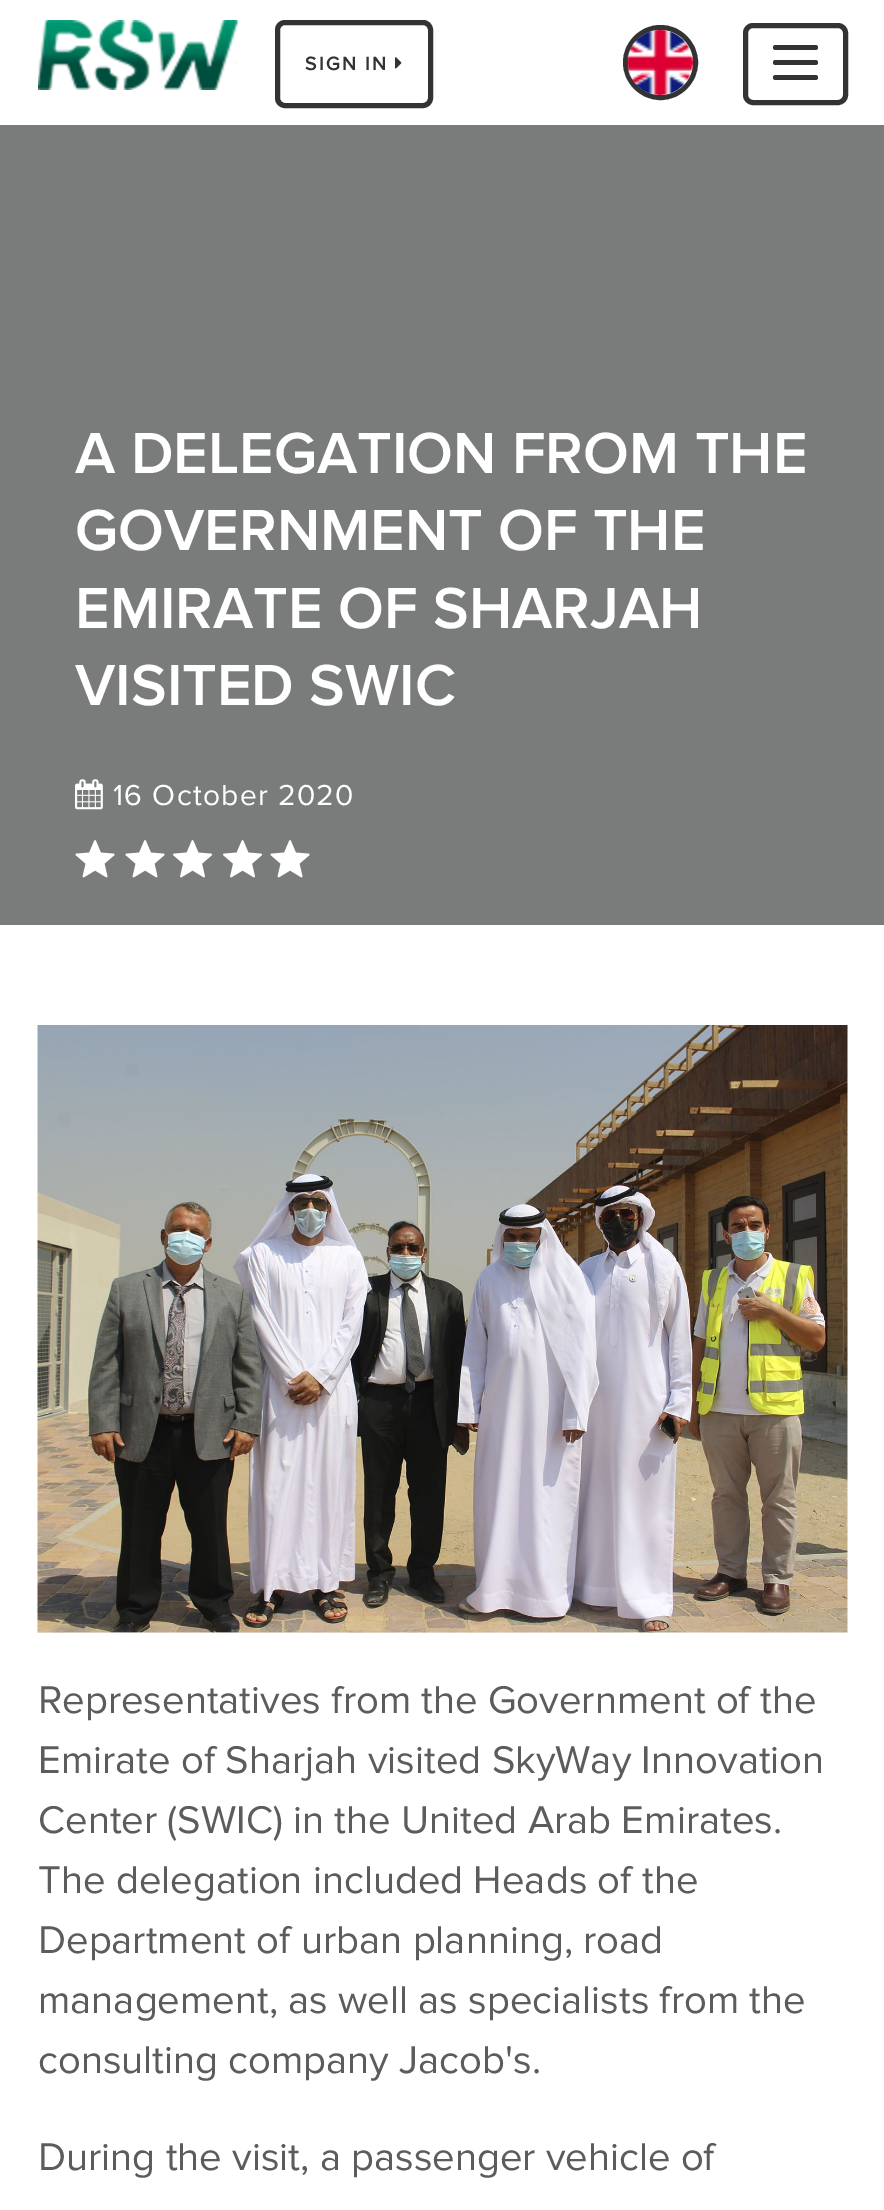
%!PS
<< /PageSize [884 2210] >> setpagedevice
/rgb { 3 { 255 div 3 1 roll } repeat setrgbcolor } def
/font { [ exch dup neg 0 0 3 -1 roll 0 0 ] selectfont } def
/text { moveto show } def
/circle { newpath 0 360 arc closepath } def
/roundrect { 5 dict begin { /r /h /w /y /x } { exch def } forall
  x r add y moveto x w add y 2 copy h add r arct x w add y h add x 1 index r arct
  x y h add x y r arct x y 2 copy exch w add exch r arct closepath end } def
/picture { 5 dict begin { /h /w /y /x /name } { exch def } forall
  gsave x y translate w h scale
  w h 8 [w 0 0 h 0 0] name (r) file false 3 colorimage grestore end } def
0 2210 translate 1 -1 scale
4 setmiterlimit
255 255 255 rgb
0 0 884 2210 rectfill
(img_01.rgb) 38 20 200 70 picture
51 51 51 rgb
5 setlinewidth
277.5 22.5 153 83 7.5 roundrect stroke
(img_02.rgb) 395 57 7 12 picture
660.5 62.5 35 circle stroke
(img_03.rgb) 627 30 66 65 picture
745.5 25.5 100 77 7.5 roundrect stroke
773 45 45 5 2.5 roundrect fill
773 60 45 5 2.5 roundrect fill
773 75 45 5 2.5 roundrect fill
122 124 123 rgb
0 125 884 800 rectfill
(img_04.rgb) 75 779 28 31 picture
(img_05.rgb) 75 840 40 38 picture
(img_05.rgb) 125 840 40 38 picture
(img_06.rgb) 173 840 40 38 picture
(img_06.rgb) 223 840 40 38 picture
(img_05.rgb) 270 840 40 38 picture
(img_07.rgb) 37 1025 811 608 picture
/ProximaNova-SemiBold 20 font
51 51 51 rgb
305 70 moveto 1.75 0 (SIGN IN) ashow
/ProximaNova-SemiBold 60 font
255 255 255 rgb
(A DELEGATION FROM THE) 75 473 text
(GOVERNMENT OF THE) 75 550 text
(EMIRATE OF SHARJAH) 75 628 text
(VISITED SWIC) 75 705 text
/ProximaNova-Regular 30 font
113 805 moveto 1.25 0 (16 October 2020) ashow
/ProximaNova-Regular 40 font
92 92 92 rgb
(Representatives from the Government of the) 38 1713 text
(Emirate of Sharjah visited SkyWay Innovation) 38 1773 text
(Center \(SWIC\) in the United Arab Emirates.) 38 1833 text
(The delegation included Heads of the) 38 1893 text
(Department of urban planning, road) 38 1953 text
(management, as well as specialists from the) 38 2013 text
(consulting company Jacob's.) 38 2073 text
(During the visit, a passenger vehicle of) 38 2170 text
showpage
